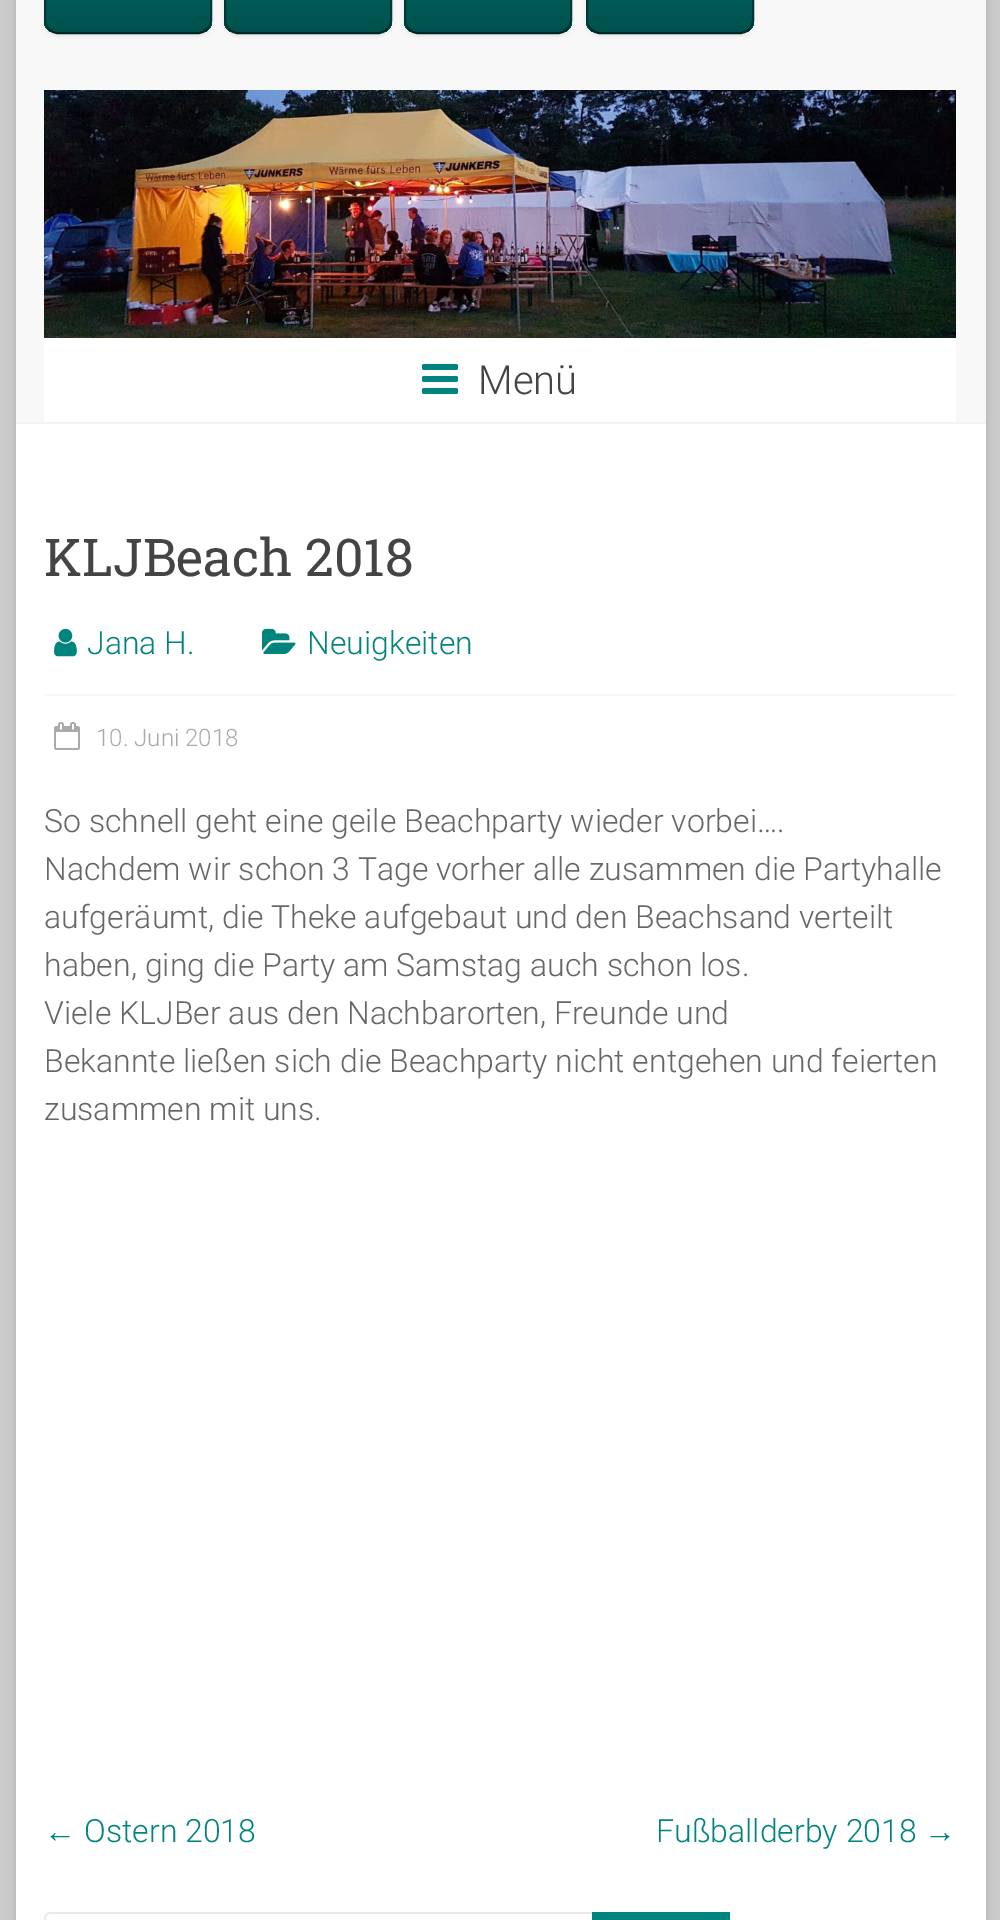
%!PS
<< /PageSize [1000 1920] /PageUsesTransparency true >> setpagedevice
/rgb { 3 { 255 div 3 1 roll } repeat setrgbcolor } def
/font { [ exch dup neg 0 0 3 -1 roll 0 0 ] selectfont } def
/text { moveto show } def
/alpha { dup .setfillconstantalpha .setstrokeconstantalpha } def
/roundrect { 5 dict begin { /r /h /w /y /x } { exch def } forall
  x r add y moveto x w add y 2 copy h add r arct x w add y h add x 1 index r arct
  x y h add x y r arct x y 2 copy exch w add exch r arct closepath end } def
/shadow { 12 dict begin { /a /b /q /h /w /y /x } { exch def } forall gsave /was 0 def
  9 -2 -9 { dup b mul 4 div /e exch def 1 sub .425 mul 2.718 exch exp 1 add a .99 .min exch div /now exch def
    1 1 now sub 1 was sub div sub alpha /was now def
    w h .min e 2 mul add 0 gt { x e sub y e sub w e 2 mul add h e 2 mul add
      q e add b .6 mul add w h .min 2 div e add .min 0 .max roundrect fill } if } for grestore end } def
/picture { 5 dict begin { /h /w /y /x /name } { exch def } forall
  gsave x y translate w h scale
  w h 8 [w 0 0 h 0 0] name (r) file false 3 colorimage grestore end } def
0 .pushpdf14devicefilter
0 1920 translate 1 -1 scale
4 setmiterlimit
204 204 204 rgb
0 0 1000 1920 rectfill
100 100 100 rgb
16 -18 970 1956 0 6 0.3 shadow
255 255 255 rgb
16 424 970 1496 rectfill
248 248 248 rgb
16 0 970 422 rectfill
242 242 242 rgb
16 422 970 2 rectfill
gsave
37 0 moveto 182 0 rlineto 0 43 rlineto -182 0 rlineto closepath 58 -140 moveto 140 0 rlineto 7.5 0 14 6.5 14 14 rcurveto 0 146 rlineto 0 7.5 -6.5 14 -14 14 rcurveto -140 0 rlineto -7.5 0 -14 -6.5 -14 -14 rcurveto 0 -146 rlineto 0 -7.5 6.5 -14 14 -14 rcurveto closepath eoclip newpath
0 0 0 rgb
44 -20 168 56 14 2 0.07 shadow
grestore
gsave
44 -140 168 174 14 roundrect clip newpath
gsave 44 0 moveto 168 0 rlineto 0 32 rlineto -168 0 rlineto closepath clip newpath
<< /ShadingType 2 /ColorSpace /DeviceRGB /Coords [46 32 46 -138] /Extend [true true] /Function << /FunctionType 2 /Domain [0 1] /C0 [0 0.318 0.302] /C1 [0 0.518 0.494] /N 1 >> >> shfill grestore
grestore
0 56 53 rgb
2 setlinewidth
207 -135 moveto 2.5 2 4 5.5 4 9 rcurveto 0 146 rlineto 0 3.5 -1.5 7 -4 9 rcurveto stroke
0 40 38 rgb
207 29 moveto -2 2.5 -5.5 4 -9 4 rcurveto -140 0 rlineto -3.5 0 -7 -1.5 -9 -4 rcurveto stroke
0 56 53 rgb
49 29 moveto -2.5 -2 -4 -5.5 -4 -9 rcurveto 0 -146 rlineto 0 -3.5 1.5 -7 4 -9 rcurveto stroke
0 0 0 rgb
224 -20 168 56 14 2 0.07 shadow
gsave
224 -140 168 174 14 roundrect clip newpath
gsave 224 0 moveto 168 0 rlineto 0 32 rlineto -168 0 rlineto closepath clip newpath
<< /ShadingType 2 /ColorSpace /DeviceRGB /Coords [226 32 226 -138] /Extend [true true] /Function << /FunctionType 2 /Domain [0 1] /C0 [0 0.318 0.302] /C1 [0 0.518 0.494] /N 1 >> >> shfill grestore
grestore
0 56 53 rgb
387 -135 moveto 2.5 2 4 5.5 4 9 rcurveto 0 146 rlineto 0 3.5 -1.5 7 -4 9 rcurveto stroke
0 40 38 rgb
387 29 moveto -2 2.5 -5.5 4 -9 4 rcurveto -140 0 rlineto -3.5 0 -7 -1.5 -9 -4 rcurveto stroke
0 56 53 rgb
229 29 moveto -2.5 -2 -4 -5.5 -4 -9 rcurveto 0 -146 rlineto 0 -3.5 1.5 -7 4 -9 rcurveto stroke
0 0 0 rgb
404 -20 168 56 14 2 0.07 shadow
gsave
404 -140 168 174 14 roundrect clip newpath
gsave 404 0 moveto 168 0 rlineto 0 32 rlineto -168 0 rlineto closepath clip newpath
<< /ShadingType 2 /ColorSpace /DeviceRGB /Coords [406 32 406 -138] /Extend [true true] /Function << /FunctionType 2 /Domain [0 1] /C0 [0 0.318 0.302] /C1 [0 0.518 0.494] /N 1 >> >> shfill grestore
grestore
0 56 53 rgb
567 -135 moveto 2.5 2 4 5.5 4 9 rcurveto 0 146 rlineto 0 3.5 -1.5 7 -4 9 rcurveto stroke
0 40 38 rgb
567 29 moveto -2 2.5 -5.5 4 -9 4 rcurveto -140 0 rlineto -3.5 0 -7 -1.5 -9 -4 rcurveto stroke
0 56 53 rgb
409 29 moveto -2.5 -2 -4 -5.5 -4 -9 rcurveto 0 -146 rlineto 0 -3.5 1.5 -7 4 -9 rcurveto stroke
0 0 0 rgb
586 -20 168 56 14 2 0.07 shadow
gsave
586 -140 168 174 14 roundrect clip newpath
gsave 586 0 moveto 168 0 rlineto 0 32 rlineto -168 0 rlineto closepath clip newpath
<< /ShadingType 2 /ColorSpace /DeviceRGB /Coords [588 32 588 -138] /Extend [true true] /Function << /FunctionType 2 /Domain [0 1] /C0 [0 0.318 0.302] /C1 [0 0.518 0.494] /N 1 >> >> shfill grestore
grestore
0 56 53 rgb
749 -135 moveto 2.5 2 4 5.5 4 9 rcurveto 0 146 rlineto 0 3.5 -1.5 7 -4 9 rcurveto stroke
0 40 38 rgb
749 29 moveto -2 2.5 -5.5 4 -9 4 rcurveto -140 0 rlineto -3.5 0 -7 -1.5 -9 -4 rcurveto stroke
0 56 53 rgb
591 29 moveto -2.5 -2 -4 -5.5 -4 -9 rcurveto 0 -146 rlineto 0 -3.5 1.5 -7 4 -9 rcurveto stroke
(img_01.rgb) 44 90 912 248 picture
255 255 255 rgb
44 338 912 84 rectfill
(img_02.rgb) 422 364 36 30 picture
(img_03.rgb) 54 628 23 29 picture
(img_04.rgb) 262 628 34 26 picture
248 248 248 rgb
44 694 912 2 rectfill
(img_05.rgb) 54 722 26 28 picture
234 234 234 rgb
50 1912 moveto 542 0 rlineto 0 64 rlineto -542 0 rlineto -3 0 -6 -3 -6 -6 rcurveto 0 -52 rlineto 0 -3 3 -6 6 -6 rcurveto closepath 50 1914 moveto 542 0 rlineto 0 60 rlineto -542 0 rlineto -2 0 -4 -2 -4 -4 rcurveto 0 -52 rlineto 0 -2 2 -4 4 -4 rcurveto closepath eofill
0 132 126 rgb
592 1912 138 8 rectfill
/Roboto-Light 40 font
68 68 68 rgb
(Menü) 478 394 text
/RobotoSlab-Regular 52 font
(KLJBeach 2018) 44 576 text
/Roboto-Light 32 font
0 132 126 rgb
(Jana H.) 87 654 text
(Neuigkeiten) 307 654 text
/Roboto-Light 24 font
170 170 170 rgb
(10. Juni 2018) 96 746 text
/Roboto-Light 32 font
102 102 102 rgb
(So schnell geht eine geile Beachparty wieder vorbei….) 44 832 text
(Nachdem wir schon 3 Tage vorher alle zusammen die Partyhalle) 44 880 text
(aufgeräumt, die Theke aufgebaut und den Beachsand verteilt) 44 928 text
(haben, ging die Party am Samstag auch schon los.) 44 976 text
(Viele KLJBer aus den Nachbarorten, Freunde und) 44 1024 text
(Bekannte ließen sich die Beachparty nicht entgehen und feierten) 44 1072 text
(zusammen mit uns.) 44 1120 text
/LiberationSans-Regular 32 font
0 132 126 rgb
(←) 44 1842 text
/Roboto-Light 32 font
(Ostern 2018) 84 1842 text
(Fußballderby 2018) 656 1842 text
/LiberationSans-Regular 32 font
(→) 924 1842 text
.poppdf14devicefilter showpage
